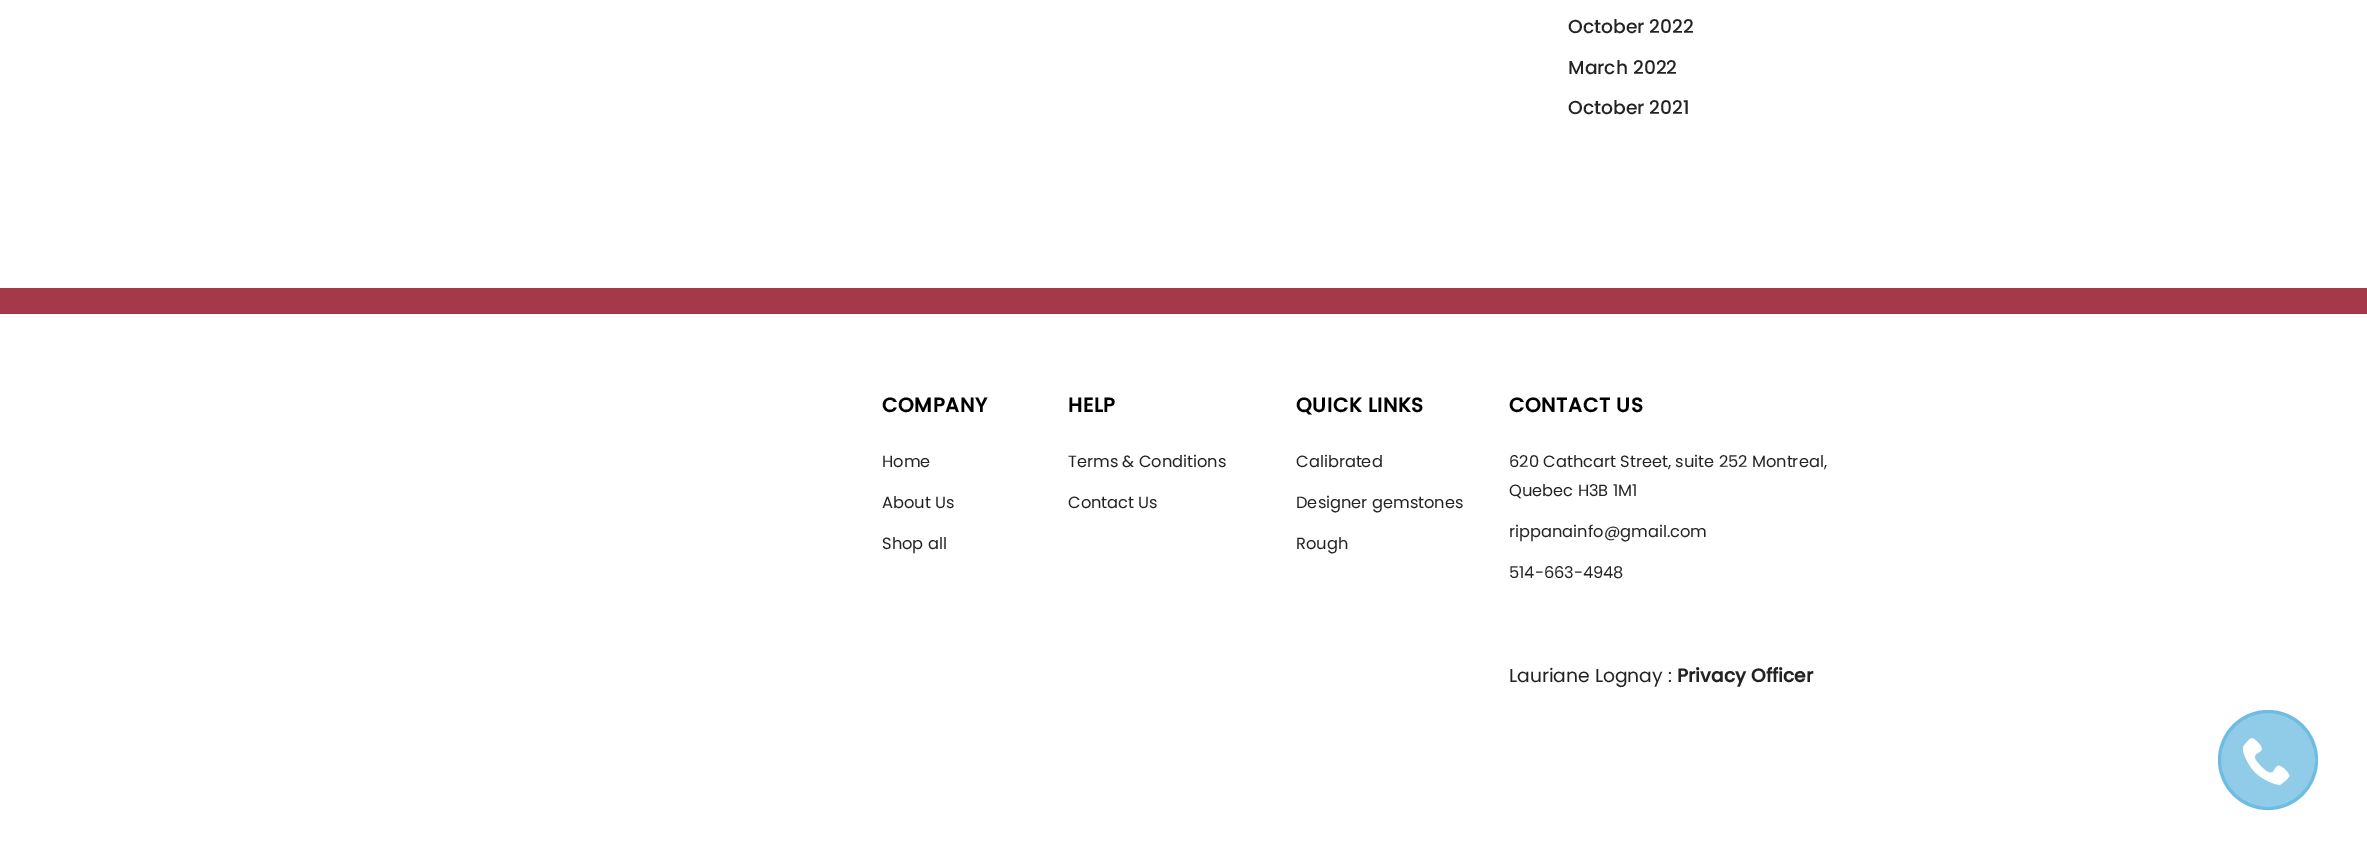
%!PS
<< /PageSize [2367 859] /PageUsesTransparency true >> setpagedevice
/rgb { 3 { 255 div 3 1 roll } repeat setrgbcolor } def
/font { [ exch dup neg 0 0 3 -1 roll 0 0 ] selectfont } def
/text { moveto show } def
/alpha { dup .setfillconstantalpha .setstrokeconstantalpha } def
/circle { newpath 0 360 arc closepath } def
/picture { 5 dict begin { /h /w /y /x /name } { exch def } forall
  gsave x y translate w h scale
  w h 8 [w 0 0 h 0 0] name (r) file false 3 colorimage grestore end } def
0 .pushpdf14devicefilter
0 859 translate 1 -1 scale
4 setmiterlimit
255 255 255 rgb
0 0 2367 859 rectfill
166 57 73 rgb
0 288 2367 26 rectfill
144 204 232 rgb
2268 760 50 circle fill
0.3 alpha
32 152 209 rgb
3 setlinewidth
2268 760 48.5 circle stroke
1 alpha
(img_01.rgb) 2243 738 47 47 picture
/Poppins-Medium 18.75 font
35 35 35 rgb
(October 2022) 1568 33 text
(March 2022) 1568 74 text
(October 2021) 1568 114 text
/Poppins-Bold 20 font
0 0 0 rgb
882 412 moveto 0.6 0 (COMPANY) ashow
/Poppins-Regular 16.25 font
35 35 35 rgb
(Home) 882 467 text
(About Us) 882 508 text
(Shop all) 882 549 text
/Poppins-Bold 20 font
0 0 0 rgb
1068 412 moveto 0.6 0 (HELP) ashow
/Poppins-Regular 16.25 font
35 35 35 rgb
(Terms & Conditions) 1068 467 text
(Contact Us) 1068 508 text
/Poppins-Bold 20 font
0 0 0 rgb
1296 412 moveto 0.6 0 (QUICK LINKS) ashow
/Poppins-Regular 16.25 font
35 35 35 rgb
(Calibrated) 1296 467 text
(Designer gemstones) 1296 508 text
(Rough) 1296 549 text
/Poppins-Bold 20 font
0 0 0 rgb
1509 412 moveto 0.6 0 (CONTACT US) ashow
/Poppins-Regular 16.25 font
35 35 35 rgb
(620 Cathcart Street, suite 252 Montreal,) 1509 467 text
(Quebec H3B 1M1) 1509 496 text
(rippanainfo@gmail.com) 1509 537 text
(514-663-4948) 1509 578 text
/Poppins-Regular 18.75 font
(Lauriane Lognay :) 1509 682 text
/Poppins-Bold 18.75 font
(Privacy Officer) 1677 682 text
.poppdf14devicefilter showpage
